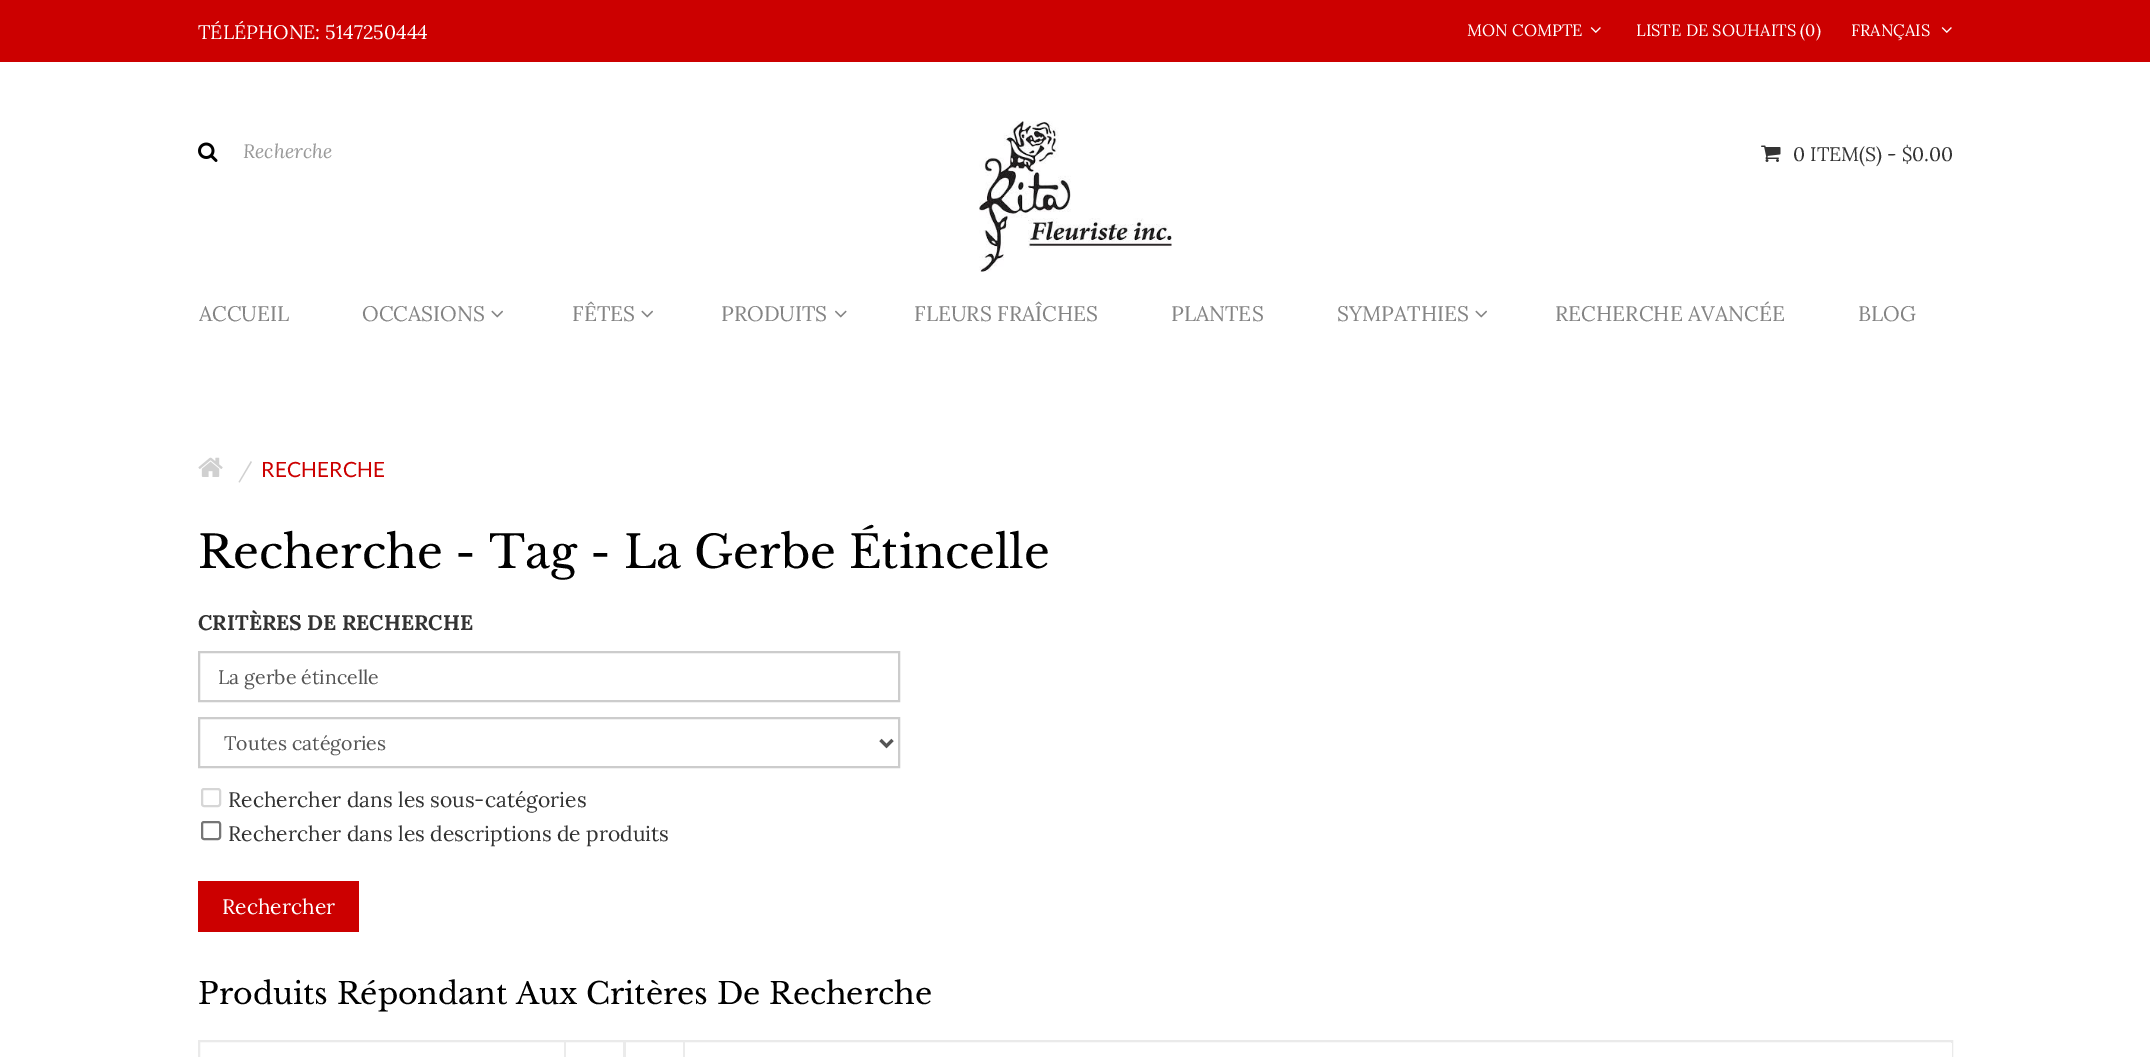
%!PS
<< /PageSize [2150 1057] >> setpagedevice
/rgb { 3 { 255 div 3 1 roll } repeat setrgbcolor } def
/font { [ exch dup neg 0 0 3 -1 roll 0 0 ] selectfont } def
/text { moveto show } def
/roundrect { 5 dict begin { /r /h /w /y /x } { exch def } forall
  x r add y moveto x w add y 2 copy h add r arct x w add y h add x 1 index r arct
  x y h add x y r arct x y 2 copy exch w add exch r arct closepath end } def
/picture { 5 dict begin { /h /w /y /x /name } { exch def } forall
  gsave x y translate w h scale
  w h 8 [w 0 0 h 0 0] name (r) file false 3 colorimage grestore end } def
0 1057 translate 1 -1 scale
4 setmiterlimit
255 255 255 rgb
0 0 2150 1057 rectfill
204 0 0 rgb
0 0 2150 62 rectfill
(img_01.rgb) 1590 27 11 6 picture
(img_01.rgb) 1941 27 11 6 picture
(img_02.rgb) 198 142 20 20 picture
(img_03.rgb) 979 121 193 151 picture
(img_04.rgb) 1761 145 20 17 picture
(img_05.rgb) 491 310 12 8 picture
(img_05.rgb) 641 310 12 8 picture
(img_06.rgb) 835 310 12 8 picture
(img_05.rgb) 1475 310 12 8 picture
(img_07.rgb) 198 457 25 20 picture
204 204 204 rgb
2 setlinewidth
199 652 700 49 rectstroke
199 718 700 49 rectstroke
85 85 85 rgb
3 setlinewidth
880.5 740 moveto 6 6 rlineto 6 -6 rlineto stroke
214 214 214 rgb
2 setlinewidth
202 789 18 17 2 roundrect stroke
118 118 118 rgb
202 822 18 17 2 roundrect stroke
204 0 0 rgb
198 881 161 51 rectfill
234 234 234 rgb
199 1041 1753 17 rectstroke
235 235 235 rgb
623 1041 3 16 rectfill
564 1041 2 16 rectfill
683 1041 2 16 rectfill
255 255 255 rgb
1951 1043 1 14 rectfill
/Lora-Regular 19.5 font
(TÉLÉPHONE: 5147250444) 198 39 text
/Lora-Regular 16.5 font
(MON COMPTE) 1467 36 text
(LISTE DE SOUHAITS \(0\)) 1636 36 text
(FRANÇAIS) 1851 36 text
/Lora-Italic 19.5 font
153 153 153 rgb
(Recherche) 243 158 text
/Lora-Regular 19.5 font
51 51 51 rgb
(0 ITEM\(S\) - $0.00) 1793 161 text
/Lora-Regular 21 font
132 132 132 rgb
(ACCUEIL) 199 321 text
(OCCASIONS) 362 321 text
(FÊTES) 572 321 text
(PRODUITS) 721 321 text
(FLEURS FRAÎCHES) 914 321 text
(PLANTES) 1171 321 text
(SYMPATHIES) 1337 321 text
(RECHERCHE AVANCÉE) 1555 321 text
(BLOG) 1858 321 text
208 208 208 rgb
(/) 238 477 text
/Lato-Regular 21 font
204 0 0 rgb
(RECHERCHE) 261 477 text
/LibreBaskerville-Regular 45 font
0 0 0 rgb
(Recherche - Tag - La Gerbe Étincelle) 198 568 text
/Lora-Bold 21 font
51 51 51 rgb
(CRITÈRES DE RECHERCHE) 198 630 text
/Lora-Regular 19.5 font
85 85 85 rgb
(La gerbe étincelle) 218 684 text
(Toutes catégories) 224 750 text
/Lora-Regular 21 font
51 51 51 rgb
(Rechercher dans les sous-catégories) 228 807 text
(Rechercher dans les descriptions de produits) 228 841 text
255 255 255 rgb
(Rechercher) 222 914 text
/LibreBaskerville-Regular 30 font
0 0 0 rgb
(Produits Répondant Aux Critères De Recherche) 198 1004 text
showpage
